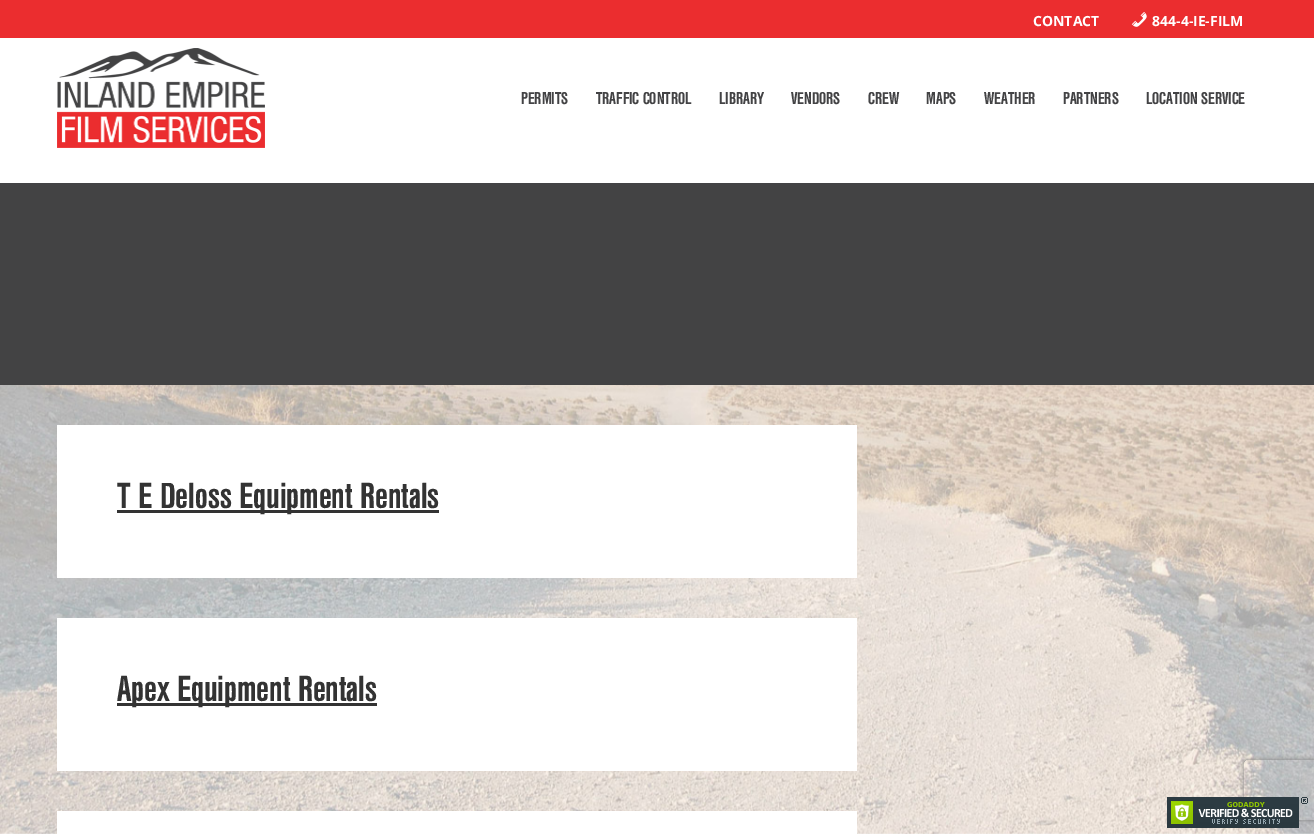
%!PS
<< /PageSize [1314 834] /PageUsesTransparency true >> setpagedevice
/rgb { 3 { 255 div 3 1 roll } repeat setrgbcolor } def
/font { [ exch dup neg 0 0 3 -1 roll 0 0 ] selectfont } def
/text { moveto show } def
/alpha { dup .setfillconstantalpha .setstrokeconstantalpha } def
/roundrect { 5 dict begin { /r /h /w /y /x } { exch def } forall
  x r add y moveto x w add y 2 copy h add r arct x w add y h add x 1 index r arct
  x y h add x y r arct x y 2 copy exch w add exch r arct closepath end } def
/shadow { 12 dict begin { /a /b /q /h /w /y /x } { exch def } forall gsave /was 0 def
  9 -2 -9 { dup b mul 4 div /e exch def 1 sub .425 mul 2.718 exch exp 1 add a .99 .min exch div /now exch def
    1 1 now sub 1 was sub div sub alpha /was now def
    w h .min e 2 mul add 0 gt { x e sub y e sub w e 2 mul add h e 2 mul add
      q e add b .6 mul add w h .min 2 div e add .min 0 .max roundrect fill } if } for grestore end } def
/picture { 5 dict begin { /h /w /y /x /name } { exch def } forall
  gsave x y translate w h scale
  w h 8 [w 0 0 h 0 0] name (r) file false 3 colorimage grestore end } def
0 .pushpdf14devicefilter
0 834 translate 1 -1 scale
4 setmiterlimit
255 255 255 rgb
0 0 1314 834 rectfill
(img_01.rgb) 0 385 1314 449 picture
235 45 47 rgb
0 0 1314 38 rectfill
(img_02.rgb) 1131 12 16 15 picture
67 67 69 rgb
0 183 1314 2 rectfill
(img_03.rgb) 57 48 208 100 picture
67 67 68 rgb
0 185 1314 200 rectfill
255 255 255 rgb
57 425 800 153 rectfill
51 51 51 rgb
117 510 322 3 rectfill
255 255 255 rgb
57 618 800 153 rectfill
51 51 51 rgb
117 703 260 3 rectfill
255 255 255 rgb
57 811 800 23 rectfill
gsave
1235 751 moveto 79 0 rlineto 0 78 rlineto -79 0 rlineto closepath 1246 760 moveto 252 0 rlineto 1 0 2 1 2 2 rcurveto 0 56 rlineto 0 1 -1 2 -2 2 rcurveto -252 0 rlineto -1 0 -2 -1 -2 -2 rcurveto 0 -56 rlineto 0 -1 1 -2 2 -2 rcurveto closepath eoclip newpath
128 128 128 rgb
1244 760 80 60 2 2.5 1 shadow
grestore
(img_04.rgb) 1167 797 141 31 picture
/OpenSans-Bold 14 font
(CONTACT) 1033 26 text
(844-4-IE-FILM) 1152 26 text
/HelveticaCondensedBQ-Medium 17 font
67 67 69 rgb
(PERMITS) 521 104 text
(TRAFFIC CONTROL) 596 104 text
(LIBRARY) 719 104 text
(VENDORS) 791 104 text
(CREW) 868 104 text
(MAPS) 926 104 text
(WEATHER) 984 104 text
(PARTNERS) 1063 104 text
(LOCATION SERVICE) 1146 104 text
/HelveticaCondensedBQ-Medium 36 font
51 51 51 rgb
(T E Deloss Equipment Rentals) 117 508 text
(Apex Equipment Rentals) 117 701 text
.poppdf14devicefilter showpage
